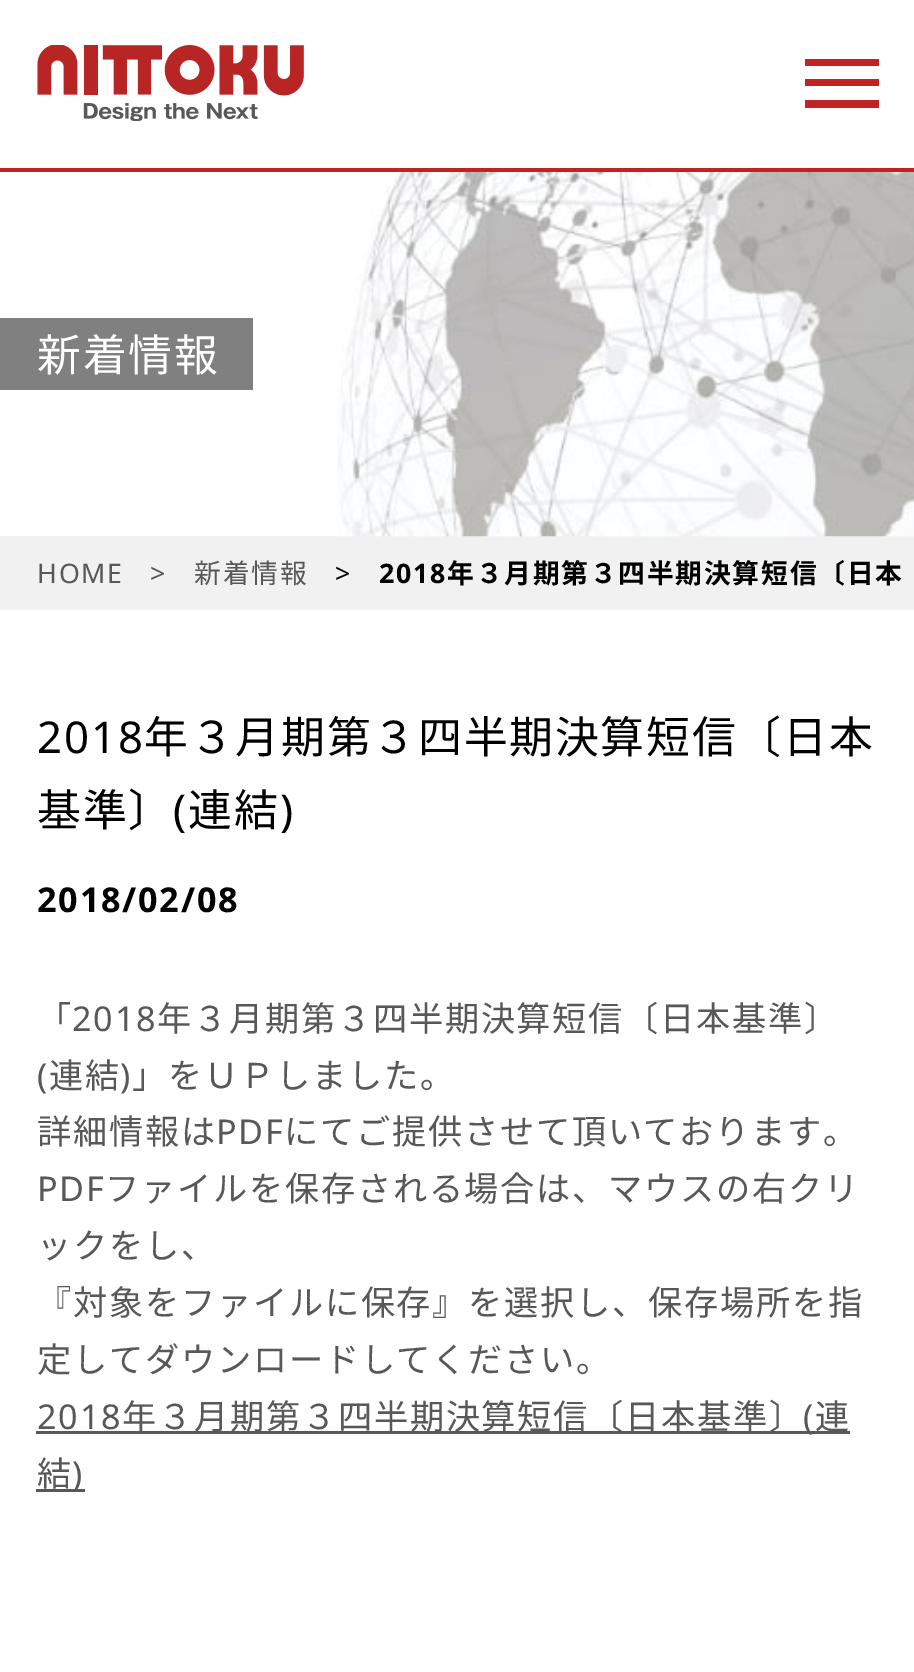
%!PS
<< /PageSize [914 1672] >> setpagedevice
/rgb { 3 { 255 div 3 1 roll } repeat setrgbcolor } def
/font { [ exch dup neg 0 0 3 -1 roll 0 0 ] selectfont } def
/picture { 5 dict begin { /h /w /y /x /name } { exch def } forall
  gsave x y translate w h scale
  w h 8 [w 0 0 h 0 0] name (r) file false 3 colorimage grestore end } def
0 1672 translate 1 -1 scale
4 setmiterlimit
255 255 255 rgb
0 0 914 1672 rectfill
193 35 36 rgb
0 168 914 4 rectfill
(img_01.rgb) 37 45 267 76 picture
805 59 74 7 rectfill
805 79 74 7 rectfill
805 100 74 8 rectfill
241 241 241 rgb
0 536 914 74 rectfill
(img_02.rgb) 337 172 577 365 picture
128 128 128 rgb
0 318 253 72 rectfill
88 88 88 rgb
36 1431 814 3 rectfill
36 1489 49 3 rectfill
/NotoSansJP-Regular 43.9 font
255 255 255 rgb
37 371 moveto 1.75 0 (新着情報) ashow
/NotoSans-Regular 26.8 font
88 88 88 rgb
37 583 moveto 1.75 0 (HOME) ashow
150 583 moveto 1.75 0 (>) ashow
/NotoSansJP-Regular 26.8 font
194 583 moveto 1.75 0 (新着情報) ashow
/NotoSans-Regular 26.8 font
0 0 0 rgb
335 583 moveto 1.75 0 (>) ashow
/NotoSans-Bold 26.8 font
379 583 moveto 1.75 0 (2018) ashow
/NotoSansJP-Bold 26.8 font
447 583 moveto 1.75 0 (年３月期第３四半期決算短信〔日本) ashow
/NotoSans-Regular 43.9 font
37 753 moveto 1.75 0 (2018) ashow
/NotoSansJP-Regular 43.9 font
144 753 moveto 1.75 0 (年３月期第３四半期決算短信〔日本) ashow
37 826 moveto 1.75 0 (基準〕) ashow
/NotoSans-Regular 43.9 font
173 826 moveto 1.75 0 (\() ashow
/NotoSansJP-Regular 43.9 font
188 826 moveto 1.75 0 (連結) ashow
/NotoSans-Regular 43.9 font
280 826 moveto 1.75 0 (\)) ashow
/NotoSans-Bold 34.2 font
37 912 moveto 1.75 0 (2018/02/08) ashow
/NotoSansJP-Regular 34.2 font
88 88 88 rgb
37 1031 moveto 1.75 0 (「) ashow
/NotoSans-Regular 34.2 font
72 1031 moveto 1.75 0 (2018) ashow
/NotoSansJP-Regular 34.2 font
157 1031 moveto 1.75 0 (年３月期第３四半期決算短信〔日本基準〕) ashow
/NotoSans-Regular 34.2 font
37 1088 moveto 1.75 0 (\() ashow
/NotoSansJP-Regular 34.2 font
49 1088 moveto 1.75 0 (連結) ashow
/NotoSans-Regular 34.2 font
120 1088 moveto 1.75 0 (\)) ashow
/NotoSansJP-Regular 34.2 font
132 1088 moveto 1.75 0 (」をＵＰしました。) ashow
37 1144 moveto 1.75 0 (詳細情報は) ashow
/NotoSans-Regular 34.2 font
216 1144 moveto 1.75 0 (PDF) ashow
/NotoSansJP-Regular 34.2 font
284 1144 moveto 1.75 0 (にてご提供させて頂いております。) ashow
/NotoSans-Regular 34.2 font
37 1201 moveto 1.75 0 (PDF) ashow
/NotoSansJP-Regular 34.2 font
105 1201 moveto 1.75 0 (ファイルを保存される場合は、マウスの右クリ) ashow
37 1258 moveto 1.75 0 (ックをし、) ashow
37 1315 moveto 1.75 0 (『対象をファイルに保存』を選択し、保存場所を指) ashow
37 1372 moveto 1.75 0 (定してダウンロードしてください。) ashow
/NotoSans-Regular 34.2 font
37 1429 moveto 1.75 0 (2018) ashow
/NotoSansJP-Regular 34.2 font
122 1429 moveto 1.75 0 (年３月期第３四半期決算短信〔日本基準〕) ashow
/NotoSans-Regular 34.2 font
803 1429 moveto 1.75 0 (\() ashow
/NotoSansJP-Regular 34.2 font
815 1429 moveto 1.75 0 (連) ashow
37 1486 moveto 1.75 0 (結) ashow
/NotoSans-Regular 34.2 font
72 1486 moveto 1.75 0 (\)) ashow
showpage
